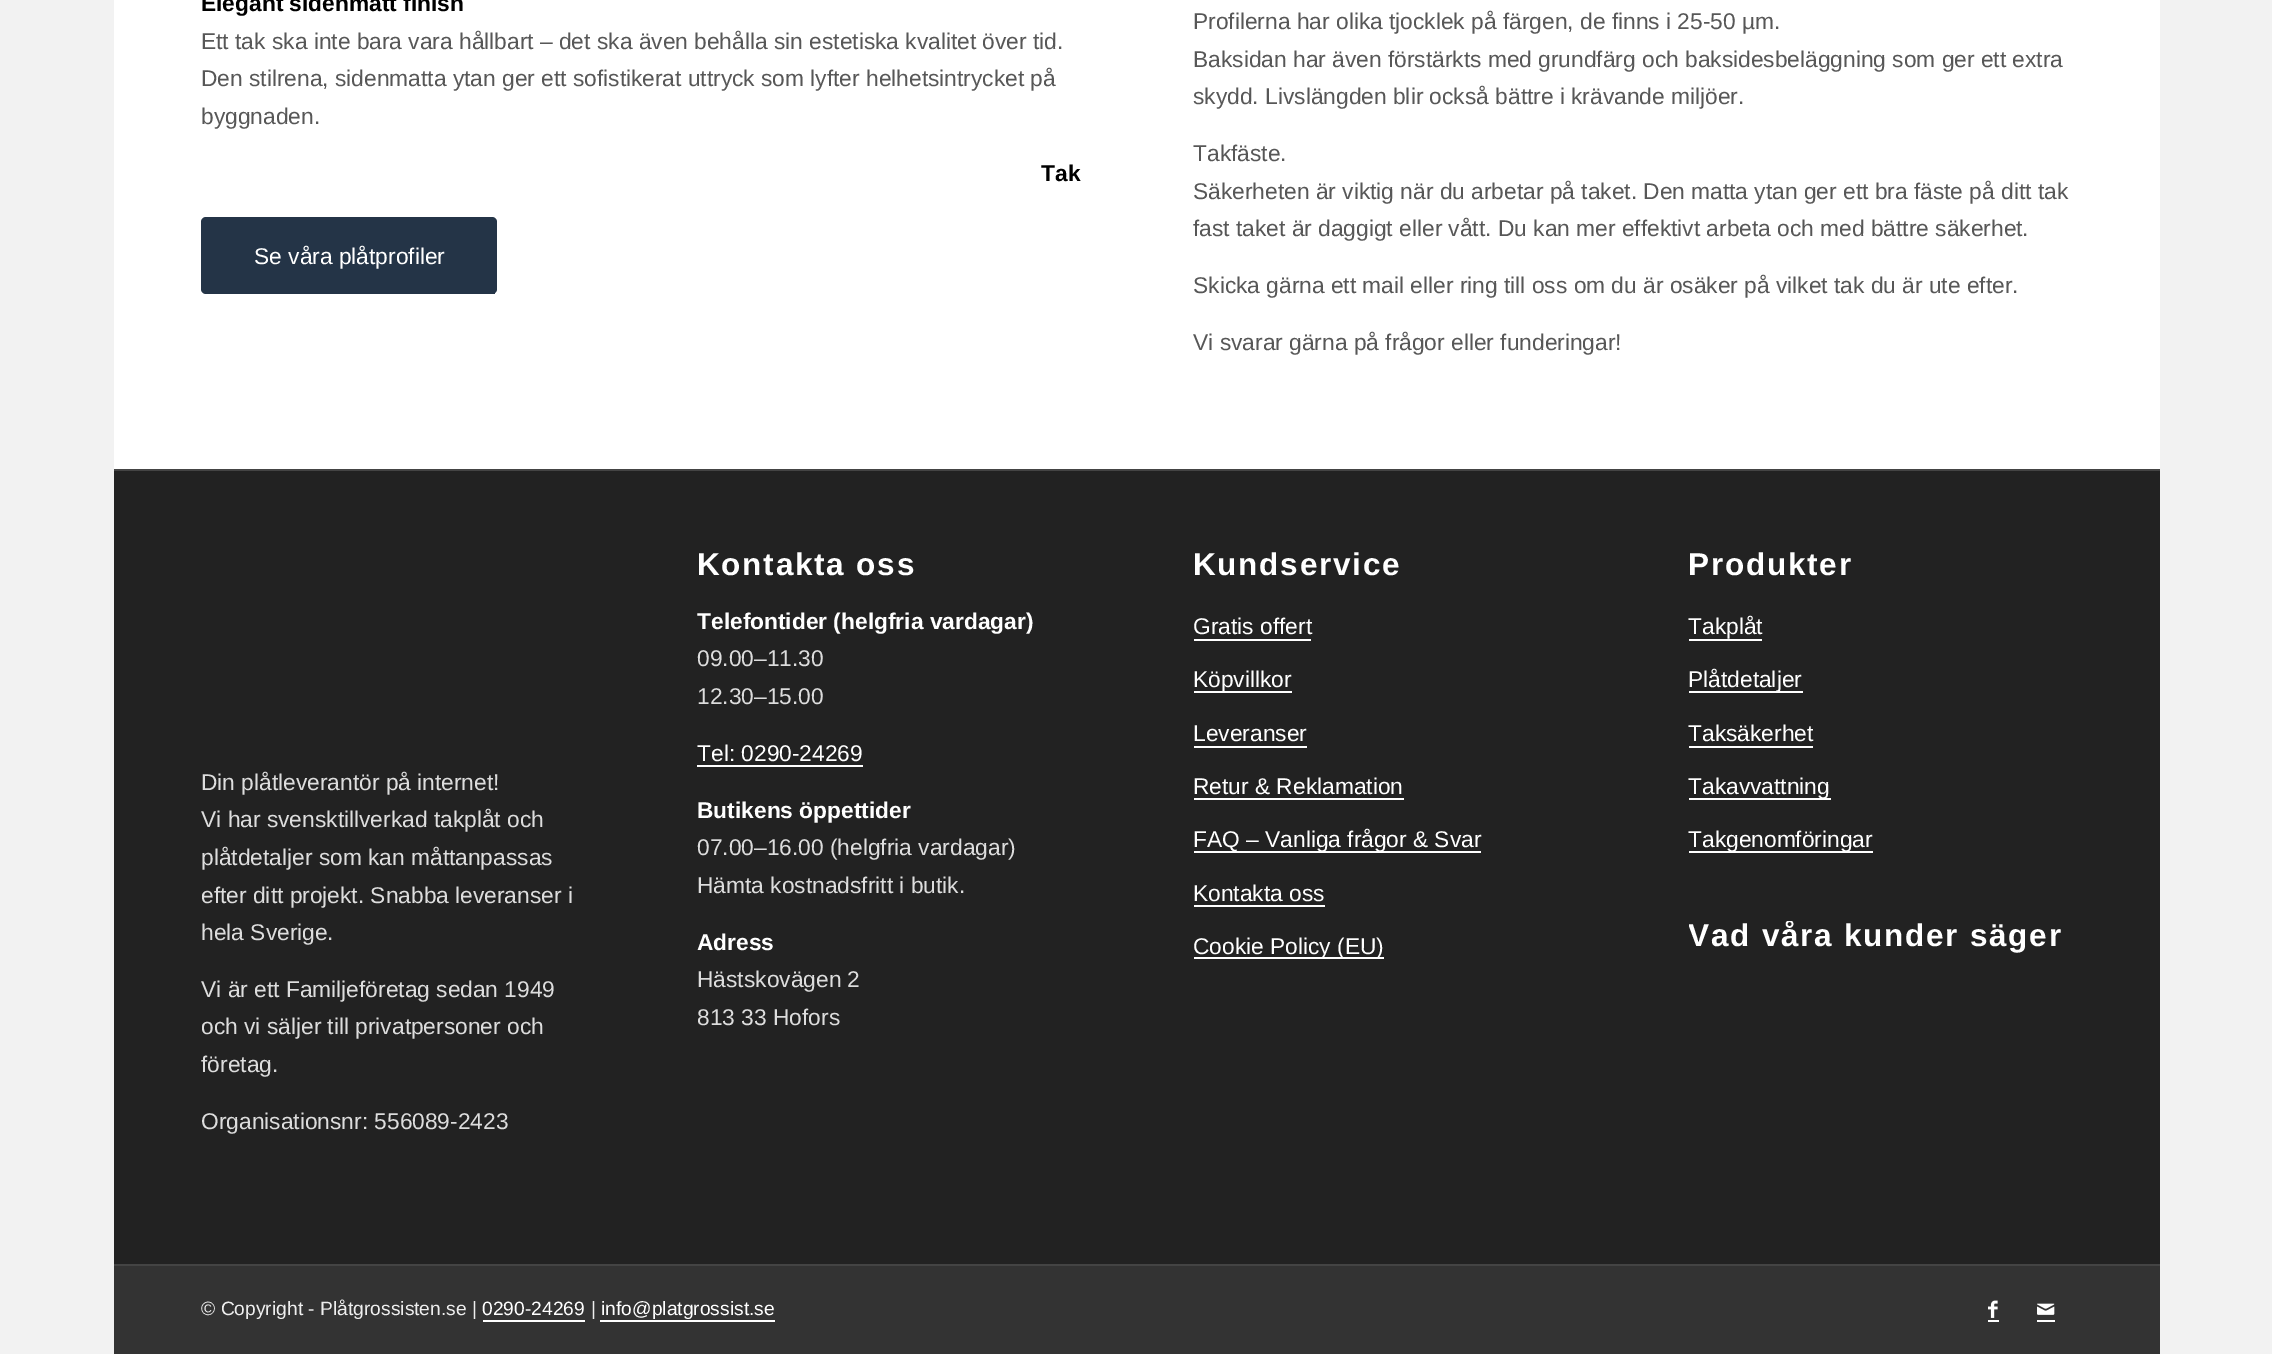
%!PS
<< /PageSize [2272 1354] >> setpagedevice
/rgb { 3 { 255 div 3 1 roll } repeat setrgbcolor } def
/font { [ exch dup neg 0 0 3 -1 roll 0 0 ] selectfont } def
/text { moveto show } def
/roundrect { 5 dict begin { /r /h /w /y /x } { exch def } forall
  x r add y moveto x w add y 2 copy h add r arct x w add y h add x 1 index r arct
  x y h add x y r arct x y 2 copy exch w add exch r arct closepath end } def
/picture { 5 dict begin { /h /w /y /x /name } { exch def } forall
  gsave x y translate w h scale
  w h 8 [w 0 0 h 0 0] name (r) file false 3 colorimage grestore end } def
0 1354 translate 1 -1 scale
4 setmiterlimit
242 242 242 rgb
0 0 2272 1354 rectfill
255 255 255 rgb
114 0 2046 469 rectfill
36 52 71 rgb
201 217 296 77 5 roundrect fill
205 293 290 1 rectfill
34 34 34 rgb
114 471 2046 793 rectfill
68 68 68 rgb
114 469 2046 2 rectfill
255 255 255 rgb
697 765 166 2 rectfill
1194 639 117 2 rectfill
1194 691 98 2 rectfill
1194 746 113 2 rectfill
1194 798 210 2 rectfill
1194 851 287 2 rectfill
1194 905 131 2 rectfill
1194 957 190 2 rectfill
1689 639 73 2 rectfill
1689 691 114 2 rectfill
1689 746 124 2 rectfill
1689 798 142 2 rectfill
1689 851 184 2 rectfill
51 51 51 rgb
114 1266 2046 88 rectfill
68 68 68 rgb
114 1264 2046 2 rectfill
255 255 255 rgb
483 1320 102 2 rectfill
600 1320 175 2 rectfill
(img_01.rgb) 1988 1300 10 18 picture
1988 1320 11 2 rectfill
(img_02.rgb) 2037 1303 18 12 picture
2037 1320 18 2 rectfill
/LiberationSans-Bold 22.75 font
0 0 0 rgb
(Elegant sidenmatt finish) 201 11 text
/LiberationSans-Regular 22.75 font
87 87 87 rgb
(Ett tak ska inte bara vara hållbart – det ska även behålla sin estetiska kvalitet över tid.) 201 49 text
(Den stilrena, sidenmatta ytan ger ett sofistikerat uttryck som lyfter helhetsintrycket på) 201 86 text
(byggnaden.) 201 124 text
/LiberationSans-Bold 22.75 font
0 0 0 rgb
(Tak) 1041 181 text
/LiberationSans-Regular 22.75 font
255 255 255 rgb
(Se våra plåtprofiler) 254 264 text
87 87 87 rgb
(Profilerna har olika tjocklek på färgen, de finns i 25-50 µm.) 1193 29 text
(Baksidan har även förstärkts med grundfärg och baksidesbeläggning som ger ett extra) 1193 67 text
(skydd. Livslängden blir också bättre i krävande miljöer.) 1193 104 text
(Takfäste.) 1193 161 text
(Säkerheten är viktig när du arbetar på taket. Den matta ytan ger ett bra fäste på ditt tak) 1193 199 text
(fast taket är daggigt eller vått. Du kan mer effektivt arbeta och med bättre säkerhet.) 1193 236 text
(Skicka gärna ett mail eller ring till oss om du är osäker på vilket tak du är ute efter.) 1193 293 text
(Vi svarar gärna på frågor eller funderingar!) 1193 350 text
221 221 221 rgb
(Din plåtleverantör på internet!) 201 790 text
(Vi har svensktillverkad takplåt och) 201 827 text
(plåtdetaljer som kan måttanpassas) 201 865 text
(efter ditt projekt. Snabba leveranser i) 201 903 text
(hela Sverige.) 201 940 text
(Vi är ett Familjeföretag sedan 1949) 201 997 text
(och vi säljer till privatpersoner och) 201 1034 text
(företag.) 201 1072 text
(Organisationsnr: 556089-2423) 201 1129 text
/LiberationSans-Bold 31.5 font
255 255 255 rgb
697 575 moveto 1.75 0 (Kontakta oss) ashow
/LiberationSans-Bold 22.75 font
(Telefontider \(helgfria vardagar\)) 697 629 text
/LiberationSans-Regular 22.75 font
221 221 221 rgb
(09.00–11.30) 697 666 text
(12.30–15.00) 697 704 text
255 255 255 rgb
(Tel: 0290-24269) 697 761 text
/LiberationSans-Bold 22.75 font
(Butikens öppettider) 697 818 text
/LiberationSans-Regular 22.75 font
221 221 221 rgb
(07.00–16.00 \(helgfria vardagar\)) 697 855 text
(Hämta kostnadsfritt i butik.) 697 893 text
/LiberationSans-Bold 22.75 font
255 255 255 rgb
(Adress) 697 950 text
/LiberationSans-Regular 22.75 font
221 221 221 rgb
(Hästskovägen 2) 697 987 text
(813 33 Hofors) 697 1025 text
/LiberationSans-Bold 31.5 font
255 255 255 rgb
1193 575 moveto 1.75 0 (Kundservice) ashow
/LiberationSans-Regular 22.75 font
(Gratis offert) 1193 634 text
(Köpvillkor) 1193 687 text
(Leveranser) 1193 741 text
(Retur & Reklamation) 1193 794 text
(FAQ – Vanliga frågor & Svar) 1193 847 text
(Kontakta oss) 1193 901 text
(Cookie Policy \(EU\)) 1193 954 text
/LiberationSans-Bold 31.5 font
1688 575 moveto 1.75 0 (Produkter) ashow
/LiberationSans-Regular 22.75 font
(Takplåt) 1688 634 text
(Plåtdetaljer) 1688 687 text
(Taksäkerhet) 1688 741 text
(Takavvattning) 1688 794 text
(Takgenomföringar) 1688 847 text
gsave
1689 921 383 50 rectclip
/LiberationSans-Bold 31.5 font
1688 946 moveto 1.75 0 (Vad våra kunder säger) ashow
grestore
/LiberationSans-Regular 19.25 font
238 238 238 rgb
(© Copyright - Plåtgrossisten.se |) 201 1315 text
255 255 255 rgb
(0290-24269) 482 1315 text
238 238 238 rgb
(|) 591 1315 text
255 255 255 rgb
(info@platgrossist.se) 601 1315 text
showpage
